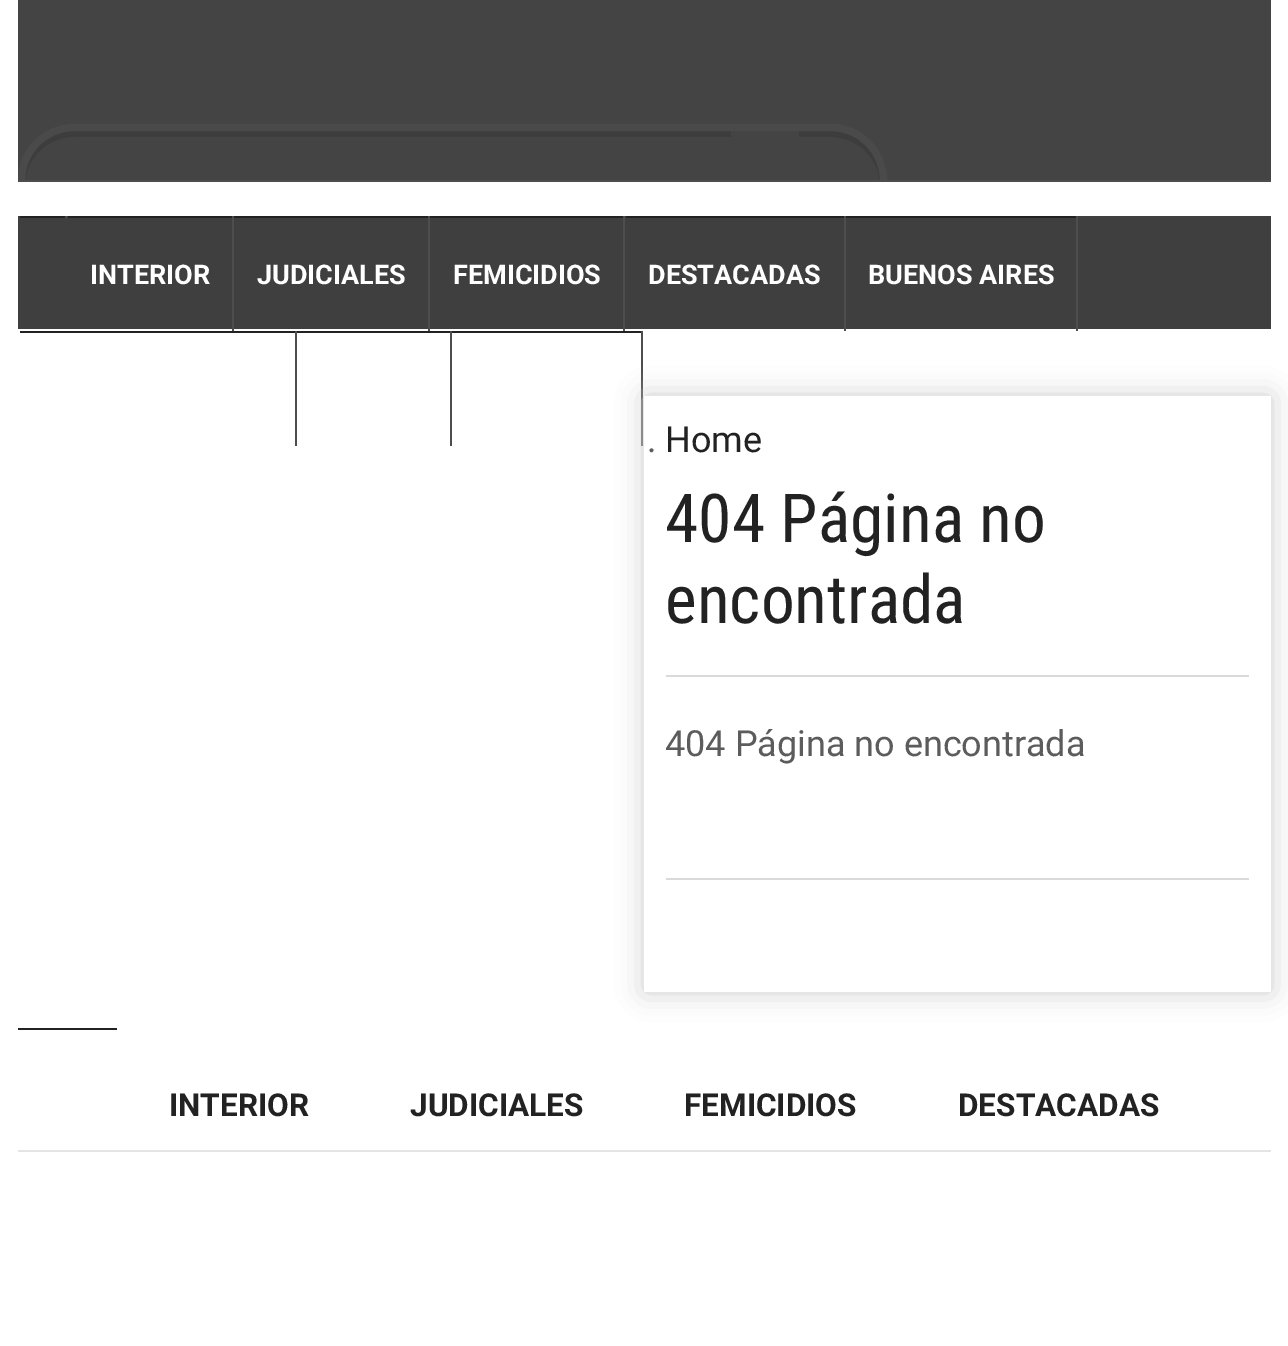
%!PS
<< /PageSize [1288 1346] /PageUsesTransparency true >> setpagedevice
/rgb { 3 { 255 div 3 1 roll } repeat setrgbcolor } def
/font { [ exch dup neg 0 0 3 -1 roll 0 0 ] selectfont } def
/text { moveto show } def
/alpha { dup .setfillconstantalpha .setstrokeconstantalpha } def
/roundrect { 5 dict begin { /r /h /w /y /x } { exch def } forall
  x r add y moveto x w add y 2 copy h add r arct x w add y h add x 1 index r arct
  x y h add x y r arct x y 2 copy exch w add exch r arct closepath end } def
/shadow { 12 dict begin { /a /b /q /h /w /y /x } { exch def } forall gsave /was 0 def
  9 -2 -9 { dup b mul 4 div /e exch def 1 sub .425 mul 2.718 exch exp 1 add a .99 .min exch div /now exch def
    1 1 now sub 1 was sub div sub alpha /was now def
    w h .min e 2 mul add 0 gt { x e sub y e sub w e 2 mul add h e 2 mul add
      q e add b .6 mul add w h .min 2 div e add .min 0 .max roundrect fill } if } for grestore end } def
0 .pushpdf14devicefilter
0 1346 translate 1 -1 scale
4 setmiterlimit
255 255 255 rgb
0 0 1288 1346 rectfill
68 68 68 rgb
18 0 1253 180 rectfill
77 77 77 rgb
18 180 1253 2 rectfill
gsave
18 0 1253 180 rectclip
61 61 61 rgb
74 137 moveto 756 0 rlineto 27 0 49 21 50 47 rcurveto 1 -29 -21 -53 -50 -53 rcurveto -755 0 rlineto -29 0 -51 24 -50 53 rcurveto 1 -26 23 -47 49 -47 rcurveto closepath fill
74 74 74 rgb
7 setlinewidth
21.5 127.5 862 108 52.5 roundrect stroke
grestore
68 68 68 rgb
731 131 68 6 rectfill
63 63 63 rgb
18 216 1253 113 rectfill
77 77 77 rgb
65 216 2 2 rectfill
34 34 34 rgb
20 216 45 2 rectfill
77 77 77 rgb
232 216 2 115 rectfill
34 34 34 rgb
68 216 164 2 rectfill
77 77 77 rgb
428 216 2 115 rectfill
34 34 34 rgb
234 216 194 2 rectfill
77 77 77 rgb
623 216 2 115 rectfill
34 34 34 rgb
430 216 193 2 rectfill
77 77 77 rgb
844 216 2 115 rectfill
34 34 34 rgb
626 216 218 2 rectfill
77 77 77 rgb
1076 216 2 115 rectfill
34 34 34 rgb
846 216 230 2 rectfill
77 77 77 rgb
295 331 2 115 rectfill
34 34 34 rgb
20 331 275 2 rectfill
77 77 77 rgb
450 331 2 115 rectfill
34 34 34 rgb
297 331 153 2 rectfill
77 77 77 rgb
641 331 2 115 rectfill
34 34 34 rgb
452 331 189 2 rectfill
gsave
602 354 moveto 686 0 rlineto 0 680 rlineto -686 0 rlineto closepath 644 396 moveto 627 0 rlineto 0 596 rlineto -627 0 rlineto closepath eoclip newpath
204 204 204 rgb
644 396 627 596 0 13.5 1 shadow
grestore
218 218 218 rgb
666 675 583 2 rectfill
666 878 583 2 rectfill
228 228 228 rgb
18 1150 1253 2 rectfill
34 34 34 rgb
18 1028 99 2 rectfill
/Roboto-Bold 27 font
255 255 255 rgb
(INTERIOR) 90 284 text
(JUDICIALES) 257 284 text
(FEMICIDIOS) 453 284 text
(DESTACADAS) 648 284 text
(BUENOS AIRES) 868 284 text
/Roboto-Regular 36 font
92 92 92 rgb
(.) 647 452 text
34 34 34 rgb
(Home) 665 452 text
/RobotoCondensed-Regular 67.5 font
(404 Página no) 665 542 text
(encontrada) 665 623 text
/Roboto-Regular 36 font
92 92 92 rgb
(404 Página no encontrada) 665 756 text
/Roboto-Bold 31.5 font
34 34 34 rgb
(INTERIOR) 169 1116 text
(JUDICIALES) 410 1116 text
(FEMICIDIOS) 684 1116 text
(DESTACADAS) 958 1116 text
.poppdf14devicefilter showpage
